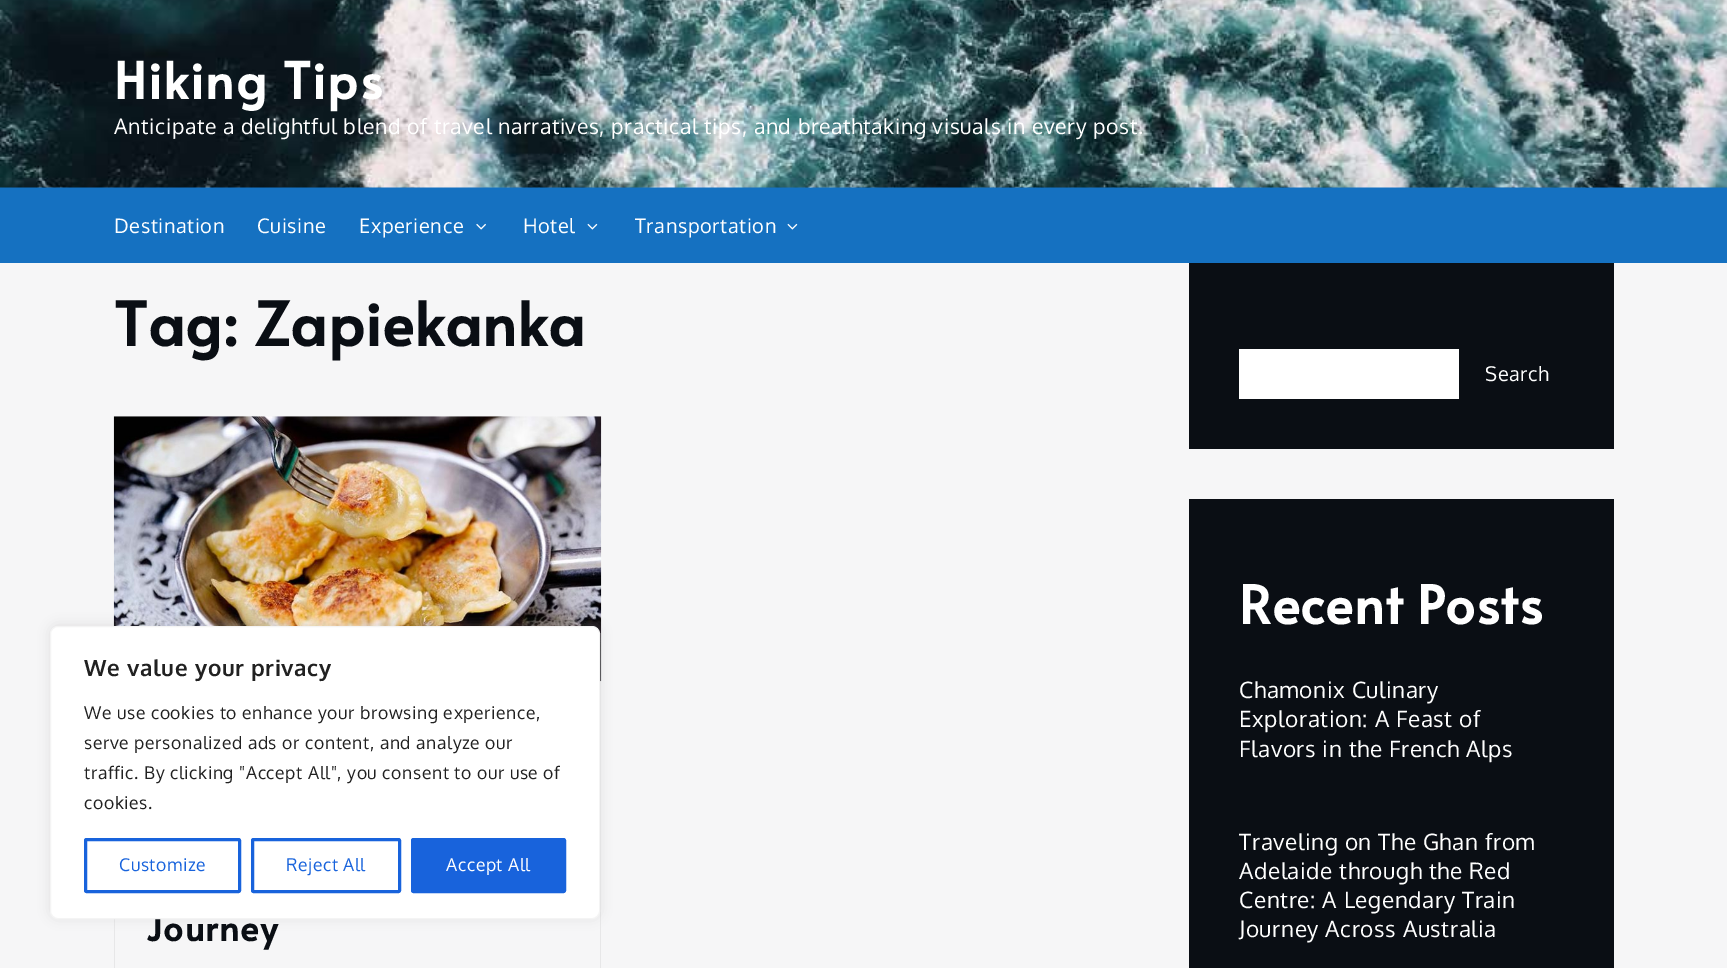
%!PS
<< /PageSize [1727 968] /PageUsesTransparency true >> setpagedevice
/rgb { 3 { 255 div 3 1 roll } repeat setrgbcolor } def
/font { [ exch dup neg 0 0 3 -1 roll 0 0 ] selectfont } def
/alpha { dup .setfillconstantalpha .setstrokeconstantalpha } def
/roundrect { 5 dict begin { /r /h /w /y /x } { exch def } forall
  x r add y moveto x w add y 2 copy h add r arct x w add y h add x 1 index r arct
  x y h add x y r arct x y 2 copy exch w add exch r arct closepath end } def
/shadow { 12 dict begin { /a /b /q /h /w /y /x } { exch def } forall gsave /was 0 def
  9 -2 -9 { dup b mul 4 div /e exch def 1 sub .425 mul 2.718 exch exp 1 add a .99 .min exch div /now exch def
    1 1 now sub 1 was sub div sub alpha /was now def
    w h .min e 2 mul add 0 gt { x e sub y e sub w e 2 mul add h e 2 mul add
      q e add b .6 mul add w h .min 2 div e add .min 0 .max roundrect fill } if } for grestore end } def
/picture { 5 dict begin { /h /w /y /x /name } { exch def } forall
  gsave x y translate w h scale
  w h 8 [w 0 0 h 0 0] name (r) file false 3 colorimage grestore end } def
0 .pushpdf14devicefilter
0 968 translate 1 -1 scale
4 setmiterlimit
246 246 247 rgb
0 0 1727 968 rectfill
21 113 193 rgb
0 187 1727 76 rectfill
(img_01.rgb) 0 0 1727 188 picture
(img_02.rgb) 476 223 10 7 picture
(img_03.rgb) 587 223 11 7 picture
(img_03.rgb) 787 223 11 7 picture
231 231 232 rgb
601 681 moveto 0 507 rlineto -1 -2 rlineto 0 -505 rlineto closepath fill
114 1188 moveto 0 -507 rlineto 1 0 rlineto 0 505 rlineto closepath fill
(img_04.rgb) 113 416 489 266 picture
10 14 20 rgb
1189 263 425 186 rectfill
255 255 255 rgb
1239 349 220 50 rectfill
10 14 20 rgb
1189 499 425 469 rectfill
172 171 171 rgb
50 625 550 293 8 6 0.3 shadow
/Alata-Bold 50 font
255 255 255 rgb
114 99 moveto 1.9 0 (Hiking Tips) ashow
/Oxygen-Regular 21.25 font
114 134 moveto 0.62 0 (Anticipate a delightful blend of travel narratives, practical tips, and breathtaking visuals in every post.) ashow
/Oxygen-Regular 20 font
114 233 moveto 0.62 0 (Destination) ashow
257 233 moveto 0.62 0 (Cuisine) ashow
359 233 moveto 0.62 0 (Experience) ashow
523 233 moveto 0.62 0 (Hotel) ashow
635 233 moveto 0.62 0 (Transportation) ashow
/Alata-Bold 60 font
10 14 20 rgb
114 346 moveto 0.62 0 (Tag: Zapiekanka) ashow
/Alata-Bold 35 font
146 941 moveto 1.25 0 (Journey) ashow
/Oxygen-Regular 20 font
255 255 255 rgb
1485 381 moveto 0.62 0 (Search) ashow
/Alata-Bold 52.5 font
1239 624 moveto 0.62 0 (Recent Posts) ashow
/Oxygen-Regular 22.5 font
1239 698 moveto 0.62 0 (Chamonix Culinary) ashow
1239 727 moveto 0.62 0 (Exploration: A Feast of) ashow
1239 757 moveto 0.62 0 (Flavors in the French Alps) ashow
1239 850 moveto 0.62 0 (Traveling on The Ghan from) ashow
1239 879 moveto 0.62 0 (Adelaide through the Red) ashow
1239 908 moveto 0.62 0 (Centre: A Legendary Train) ashow
1239 937 moveto 0.62 0 (Journey Across Australia) ashow
50.5 626.5 549 292 7.5 roundrect gsave fill grestore
244 244 244 rgb
stroke
/Oxygen-Bold 22.5 font
33 33 33 rgb
84 676 moveto 0.62 0 (We value your privacy) ashow
/Oxygen-Regular 17.5 font
84 719 moveto 0.62 0 (We use cookies to enhance your browsing experience,) ashow
84 749 moveto 0.62 0 (serve personalized ads or content, and analyze our) ashow
84 779 moveto 0.62 0 (traffic. By clicking "Accept All", you consent to our use of) ashow
84 809 moveto 0.62 0 (cookies.) ashow
24 99 220 rgb
3 setlinewidth
85.5 839.5 154 52 1 roundrect stroke
119 871 moveto 0.62 0 (Customize) ashow
252.5 839.5 147 52 1 roundrect stroke
286 871 moveto 0.62 0 (Reject All) ashow
412.5 839.5 152 52 1 roundrect gsave fill grestore
stroke
255 255 255 rgb
446 871 moveto 0.62 0 (Accept All) ashow
.poppdf14devicefilter showpage
